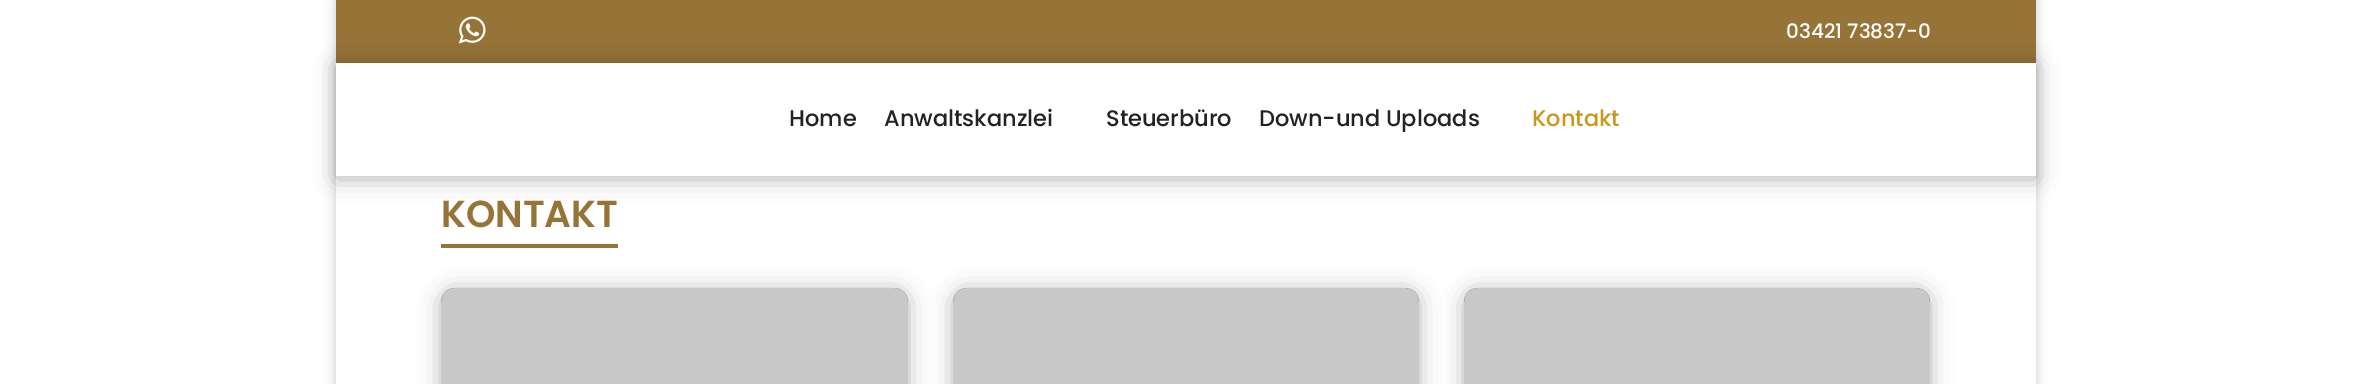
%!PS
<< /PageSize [2371 384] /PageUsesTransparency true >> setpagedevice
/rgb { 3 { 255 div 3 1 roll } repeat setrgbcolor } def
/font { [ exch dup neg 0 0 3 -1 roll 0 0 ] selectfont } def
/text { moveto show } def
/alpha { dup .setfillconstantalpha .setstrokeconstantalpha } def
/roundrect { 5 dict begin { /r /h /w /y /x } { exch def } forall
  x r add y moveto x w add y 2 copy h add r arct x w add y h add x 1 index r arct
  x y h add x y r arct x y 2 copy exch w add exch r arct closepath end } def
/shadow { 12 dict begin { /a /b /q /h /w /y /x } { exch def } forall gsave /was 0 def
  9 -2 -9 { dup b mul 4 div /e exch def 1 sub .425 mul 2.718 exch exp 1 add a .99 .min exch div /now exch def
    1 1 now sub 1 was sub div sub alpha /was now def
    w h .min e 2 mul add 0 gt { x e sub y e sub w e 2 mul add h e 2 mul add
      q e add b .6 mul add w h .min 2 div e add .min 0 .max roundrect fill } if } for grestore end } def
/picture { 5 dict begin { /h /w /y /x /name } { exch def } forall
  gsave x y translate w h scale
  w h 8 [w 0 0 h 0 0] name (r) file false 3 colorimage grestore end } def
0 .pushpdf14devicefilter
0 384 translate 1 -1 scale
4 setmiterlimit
255 255 255 rgb
0 0 2371 384 rectfill
0 0 0 rgb
336 0 1700 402 0 6 0.2 shadow
150 115 55 rgb
336 0 1700 63 rectfill
(img_01.rgb) 458 16 28 28 picture
255 255 255 rgb
336 176 1700 208 rectfill
0 0 0 rgb
336 65 1700 114 0 11 0.3 shadow
255 255 255 rgb
336 63 1700 113 rectfill
150 115 55 rgb
441 244 177 4 rectfill
gsave
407 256 moveto 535 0 rlineto 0 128 rlineto -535 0 rlineto closepath 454 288 moveto 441 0 rlineto 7 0 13 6 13 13 rcurveto 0 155 rlineto 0 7 -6 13 -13 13 rcurveto -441 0 rlineto -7 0 -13 -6 -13 -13 rcurveto 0 -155 rlineto 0 -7 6 -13 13 -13 rcurveto closepath eoclip newpath
0 0 0 rgb
441 290 467 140 13 11 0.3 shadow
grestore
0.25 alpha
35 35 35 rgb
441 288 467 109 13 roundrect fill
gsave
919 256 moveto 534 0 rlineto 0 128 rlineto -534 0 rlineto closepath 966 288 moveto 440 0 rlineto 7 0 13 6 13 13 rcurveto 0 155 rlineto 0 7 -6 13 -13 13 rcurveto -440 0 rlineto -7 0 -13 -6 -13 -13 rcurveto 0 -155 rlineto 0 -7 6 -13 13 -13 rcurveto closepath eoclip newpath
1 alpha
0 0 0 rgb
953 290 466 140 13 11 0.3 shadow
grestore
953 288 466 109 13 roundrect fill
gsave
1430 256 moveto 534 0 rlineto 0 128 rlineto -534 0 rlineto closepath 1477 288 moveto 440 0 rlineto 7 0 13 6 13 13 rcurveto 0 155 rlineto 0 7 -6 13 -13 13 rcurveto -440 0 rlineto -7 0 -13 -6 -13 -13 rcurveto 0 -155 rlineto 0 -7 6 -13 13 -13 rcurveto closepath eoclip newpath
1 alpha
0 0 0 rgb
1464 290 466 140 13 11 0.3 shadow
grestore
1464 288 466 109 13 roundrect fill
/Poppins-Medium 20 font
1 alpha
255 255 255 rgb
(03421 73837-0) 1786 38 text
/Poppins-Medium 22.5 font
35 35 35 rgb
(Home) 789 126 text
(Anwaltskanzlei) 884 126 text
(Steuerbüro) 1106 126 text
(Down-und Uploads) 1259 126 text
201 151 27 rgb
(Kontakt) 1532 126 text
/Poppins-SemiBold 37.5 font
150 115 55 rgb
(KONTAKT) 441 227 text
.poppdf14devicefilter showpage
